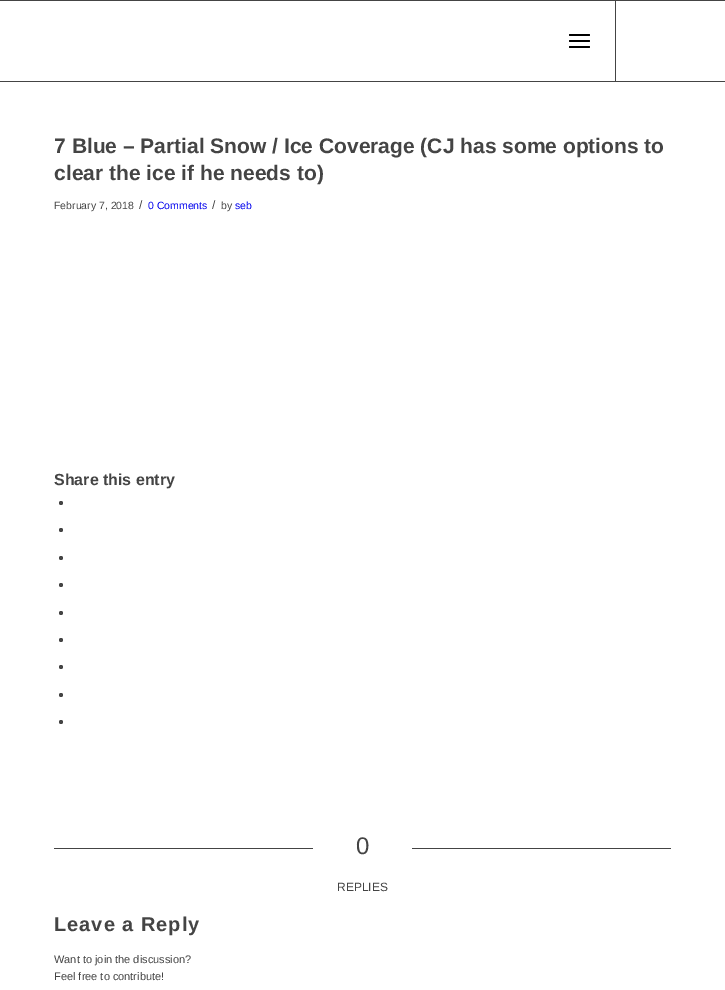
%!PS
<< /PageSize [725 990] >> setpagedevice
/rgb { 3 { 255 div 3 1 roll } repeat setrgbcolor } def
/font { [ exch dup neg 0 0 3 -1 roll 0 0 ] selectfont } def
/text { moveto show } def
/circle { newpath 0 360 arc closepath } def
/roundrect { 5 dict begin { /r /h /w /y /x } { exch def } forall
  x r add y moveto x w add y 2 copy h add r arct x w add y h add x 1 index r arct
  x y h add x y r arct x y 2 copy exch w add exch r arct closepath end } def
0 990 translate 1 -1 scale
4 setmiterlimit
255 255 255 rgb
0 0 725 990 rectfill
68 68 68 rgb
0 0 725 1 rectfill
0 81 725 1 rectfill
615 1 1 80 rectfill
0 0 0 rgb
569 40 21 2 1 roundrect fill
569 34 21 2 1 roundrect fill
569 46 21 2 1 roundrect fill
68 68 68 rgb
61 503 2 circle fill
61 530 2 circle fill
61 558 2 circle fill
61 585 2 circle fill
61 613 2 circle fill
61 640 2 circle fill
61 667 2 circle fill
61 695 2 circle fill
61 722 2 circle fill
54 848 259 1 rectfill
412 848 259 1 rectfill
/LiberationSans-Bold 21 font
(7 Blue – Partial Snow / Ice Coverage \(CJ has some options to) 54 153 text
(clear the ice if he needs to\)) 54 180 text
/LiberationSans-Regular 10.5 font
(February 7, 2018) 54 209 text
/LiberationSans-Regular 12 font
(/) 139 209 text
/LiberationSans-Regular 10.5 font
0 0 238 rgb
(0 Comments) 148 209 text
/LiberationSans-Regular 12 font
68 68 68 rgb
(/) 212 209 text
/LiberationSans-Regular 10.5 font
(by) 221 209 text
0 0 238 rgb
(seb) 235 209 text
/LiberationSans-Bold 16 font
68 68 68 rgb
(Share this entry) 54 485 text
/LiberationSans-Regular 24 font
(0) 356 854 text
/LiberationSans-Regular 12 font
(REPLIES) 337 891 text
/LiberationSans-Bold 20 font
54 931 moveto 1 0 (Leave a Reply) ashow
/LiberationSans-Regular 11 font
(Want to join the discussion?) 54 963 text
(Feel free to contribute!) 54 980 text
showpage
